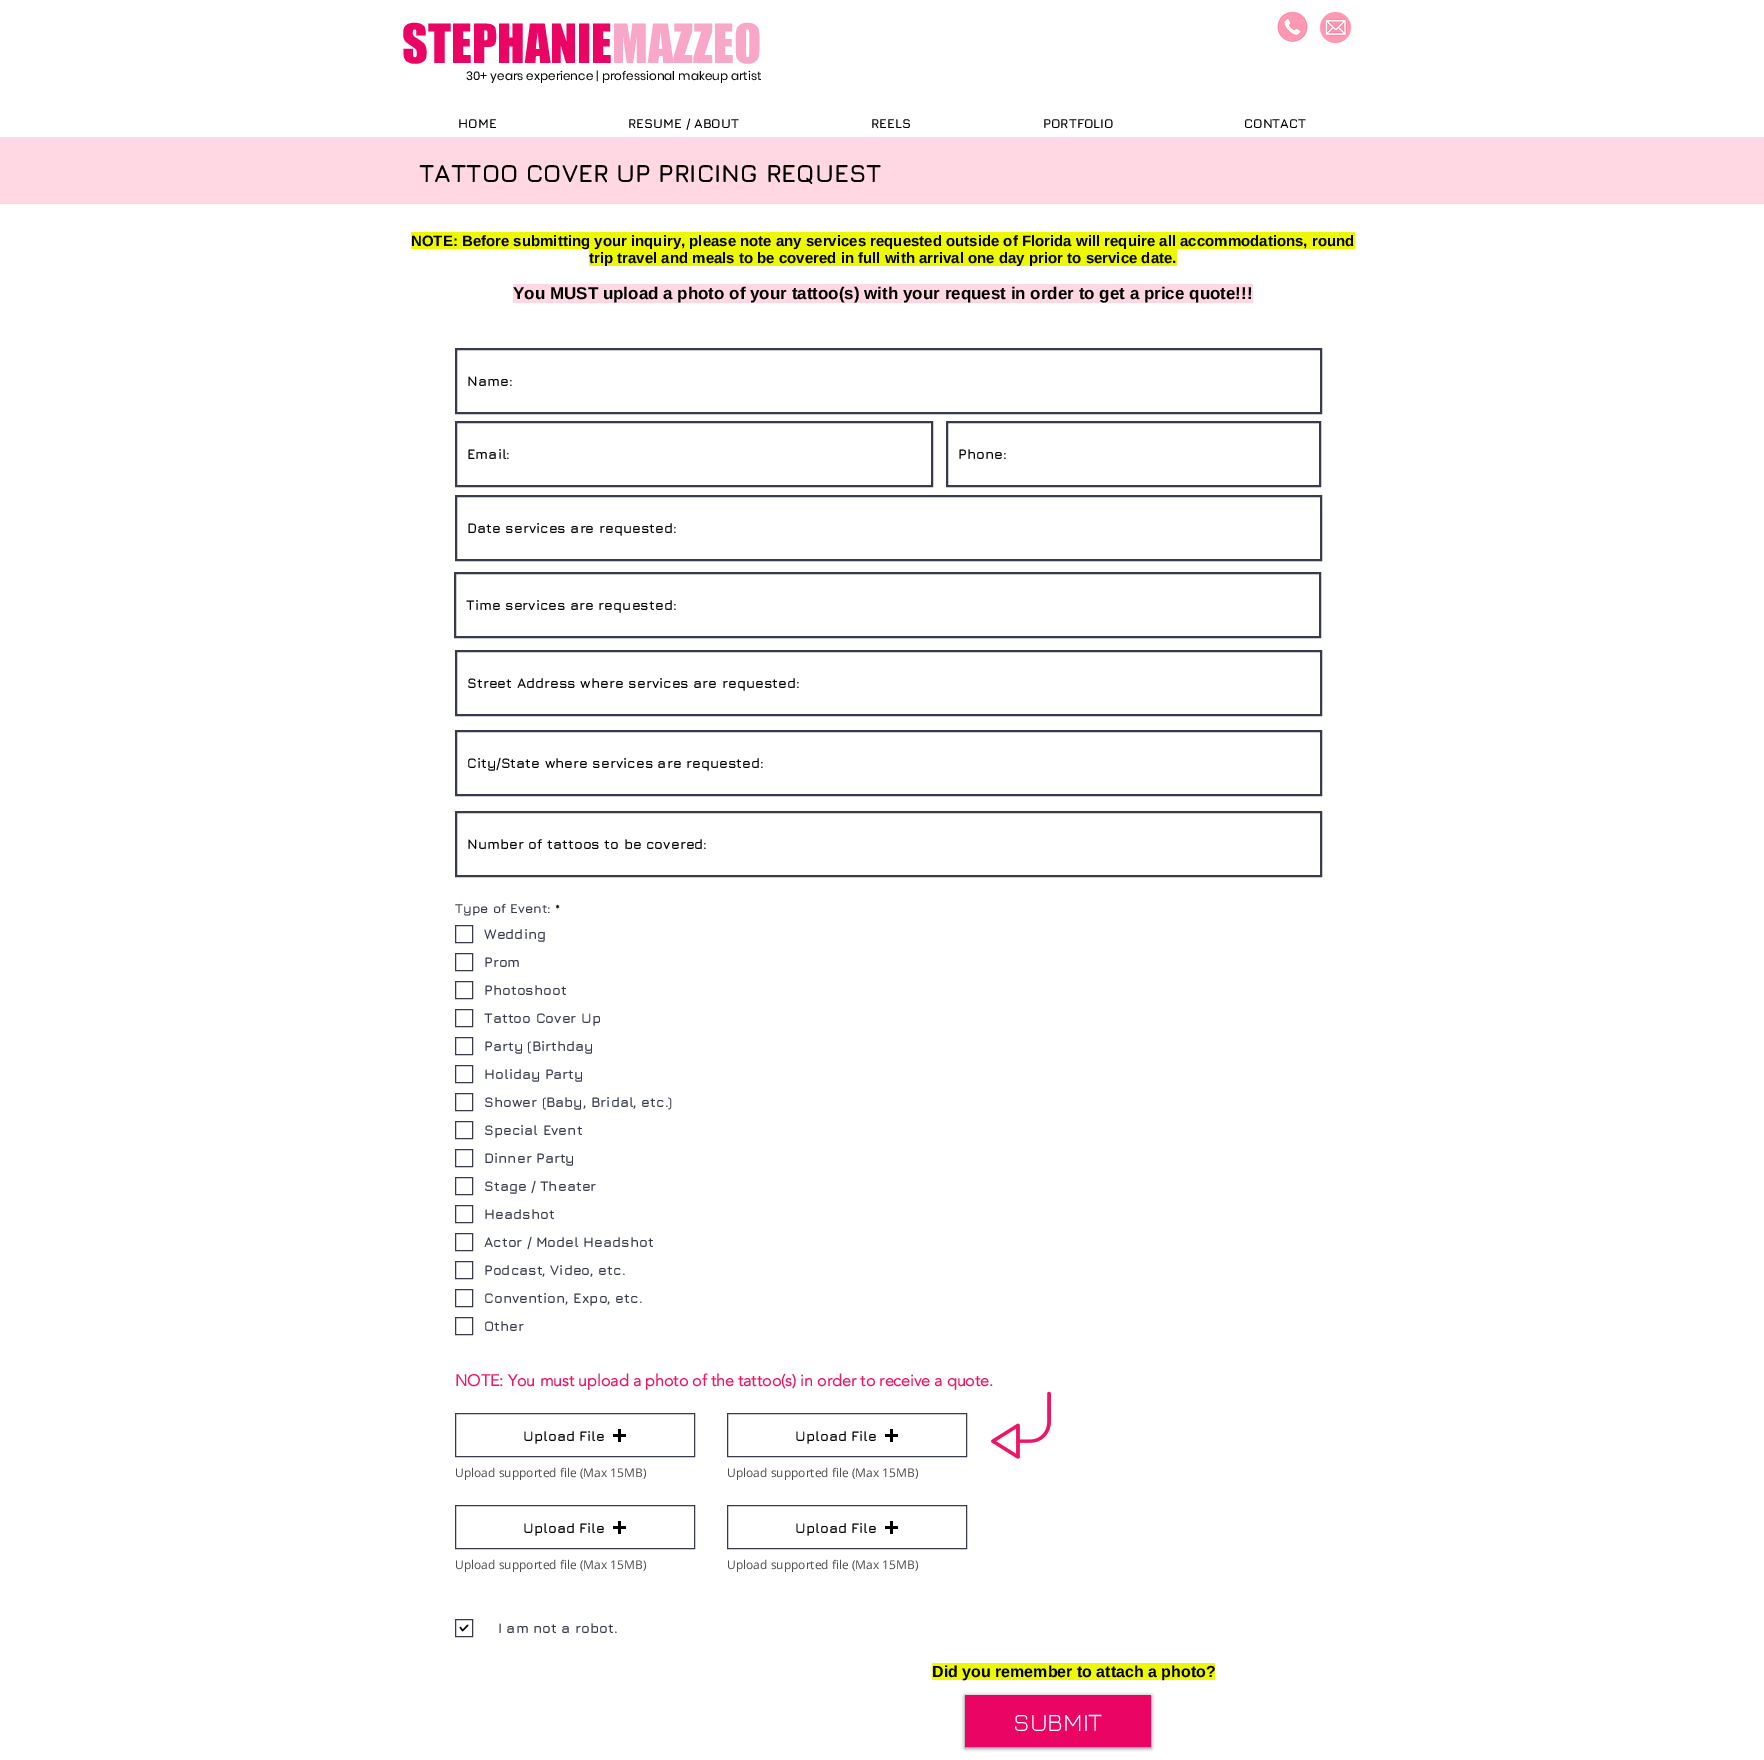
%!PS
<< /PageSize [1764 1760] /PageUsesTransparency true >> setpagedevice
/rgb { 3 { 255 div 3 1 roll } repeat setrgbcolor } def
/font { [ exch dup neg 0 0 3 -1 roll 0 0 ] selectfont } def
/text { moveto show } def
/alpha { dup .setfillconstantalpha .setstrokeconstantalpha } def
/roundrect { 5 dict begin { /r /h /w /y /x } { exch def } forall
  x r add y moveto x w add y 2 copy h add r arct x w add y h add x 1 index r arct
  x y h add x y r arct x y 2 copy exch w add exch r arct closepath end } def
/shadow { 12 dict begin { /a /b /q /h /w /y /x } { exch def } forall gsave /was 0 def
  9 -2 -9 { dup b mul 4 div /e exch def 1 sub .425 mul 2.718 exch exp 1 add a .99 .min exch div /now exch def
    1 1 now sub 1 was sub div sub alpha /was now def
    w h .min e 2 mul add 0 gt { x e sub y e sub w e 2 mul add h e 2 mul add
      q e add b .6 mul add w h .min 2 div e add .min 0 .max roundrect fill } if } for grestore end } def
/picture { 5 dict begin { /h /w /y /x /name } { exch def } forall
  gsave x y translate w h scale
  w h 8 [w 0 0 h 0 0] name (r) file false 3 colorimage grestore end } def
0 .pushpdf14devicefilter
0 1760 translate 1 -1 scale
4 setmiterlimit
255 255 255 rgb
0 0 1764 1760 rectfill
(img_01.rgb) 1277 11 31 31 picture
(img_02.rgb) 1319 11 33 33 picture
255 216 227 rgb
0 137 1764 67 rectfill
237 248 2 rgb
411 232 944 17 rectfill
589 249 588 17 rectfill
255 216 227 rgb
513 284 740 19 rectfill
55 59 77 rgb
2 setlinewidth
456 349 865 64 rectstroke
456 422 476 64 rectstroke
947 422 373 64 rectstroke
456 496 865 64 rectstroke
455 573 865 64 rectstroke
456 651 865 64 rectstroke
456 731 865 64 rectstroke
456 812 865 64 rectstroke
1 setlinewidth
455.5 925.5 17 17 rectstroke
455.5 953.5 17 17 rectstroke
455.5 981.5 17 17 rectstroke
455.5 1009.5 17 17 rectstroke
455.5 1037.5 17 17 rectstroke
455.5 1065.5 17 17 rectstroke
455.5 1093.5 17 17 rectstroke
455.5 1121.5 17 17 rectstroke
455.5 1149.5 17 17 rectstroke
455.5 1177.5 17 17 rectstroke
455.5 1205.5 17 17 rectstroke
455.5 1233.5 17 17 rectstroke
455.5 1261.5 17 17 rectstroke
455.5 1289.5 17 17 rectstroke
455.5 1317.5 17 17 rectstroke
455.5 1413.5 239 43 rectstroke
0 0 0 rgb
618 1429 3 13 rectfill
613 1434 13 3 rectfill
55 59 77 rgb
727.5 1413.5 239 43 rectstroke
0 0 0 rgb
890 1429 3 13 rectfill
885 1434 13 3 rectfill
(img_03.rgb) 991 1391 60 68 picture
55 59 77 rgb
455.5 1505.5 239 43 rectstroke
0 0 0 rgb
618 1521 3 13 rectfill
613 1526 13 3 rectfill
55 59 77 rgb
727.5 1505.5 239 43 rectstroke
0 0 0 rgb
890 1521 3 13 rectfill
885 1526 13 3 rectfill
55 59 77 rgb
455.5 1619.5 17 17 rectstroke
(img_04.rgb) 459 1624 10 8 picture
237 248 2 rgb
932 1663 283 17 rectfill
0 0 0 rgb
965 1696 186 52 0 2 0.6 shadow
234 4 100 rgb
965 1695 186 52 rectfill
/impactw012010-Regular 50 font
(STEPHANIE) 402 63 text
248 167 200 rgb
(MAZZEO) 612 63 text
/Poppins-Regular 12 font
0 0 0 rgb
(30+ years experience | professional makeup artist) 466 80 text
/Jura-Bold 13 font
(HOME) 458 128 text
(RESUME / ABOUT) 628 128 text
(REELS) 871 128 text
(PORTFOLIO) 1043 128 text
(CONTACT) 1244 128 text
/Jura-Bold 25 font
(TATTOO COVER UP PRICING REQUEST) 419 182 text
/LiberationSans-Bold 15 font
(NOTE: Before submitting your inquiry, please note any services requested outside of Florida will require all accommodations, round) 411 246 text
(trip travel and meals to be covered in full with arrival one day prior to service date.) 589 263 text
/LiberationSans-Bold 17 font
(You MUST upload a photo of your tattoo\(s\) with your request in order to get a price quote!!!) 513 299 text
/Jura-Bold 14 font
(Name:) 467 386 text
(Email:) 467 459 text
(Phone:) 958 459 text
(Date services are requested:) 467 533 text
(Time services are requested:) 466 610 text
(Street Address where services are requested:) 467 688 text
(City/State where services are requested:) 467 768 text
(Number of tattoos to be covered:) 467 849 text
/Jura-Bold 13 font
55 59 77 rgb
(Type of Event:) 455 913 text
0 0 0 rgb
(*) 555 913 text
/Jura-Bold 14 font
55 59 77 rgb
(Wedding) 484 939 text
(Prom) 484 967 text
(Photoshoot) 484 995 text
(Tattoo Cover Up) 484 1023 text
(Party \(Birthday) 484 1051 text
(Holiday Party) 484 1079 text
(Shower \(Baby, Bridal, etc.\)) 484 1107 text
(Special Event) 484 1135 text
(Dinner Party) 484 1163 text
(Stage / Theater) 484 1191 text
(Headshot) 484 1219 text
(Actor / Model Headshot) 484 1247 text
(Podcast, Video, etc.) 484 1275 text
(Convention, Expo, etc.) 484 1303 text
(Other) 484 1331 text
/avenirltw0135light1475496-Bold 16 font
237 21 102 rgb
(NOTE: You must upload a photo of the tattoo\(s\) in order to receive a quote.) 455 1386 text
/Jura-Bold 14 font
0 0 0 rgb
(Upload File) 523 1441 text
/OpenSans-Regular 12 font
77 77 77 rgb
(Upload supported file \(Max 15MB\)) 455 1477 text
/Jura-Bold 14 font
0 0 0 rgb
(Upload File) 795 1441 text
/OpenSans-Regular 12 font
77 77 77 rgb
(Upload supported file \(Max 15MB\)) 727 1477 text
/Jura-Bold 14 font
0 0 0 rgb
(Upload File) 523 1533 text
/OpenSans-Regular 12 font
77 77 77 rgb
(Upload supported file \(Max 15MB\)) 455 1569 text
/Jura-Bold 14 font
0 0 0 rgb
(Upload File) 795 1533 text
/OpenSans-Regular 12 font
77 77 77 rgb
(Upload supported file \(Max 15MB\)) 727 1569 text
/Jura-Bold 14 font
55 59 77 rgb
(I am not a robot.) 498 1633 text
/LiberationSans-Bold 16 font
0 0 0 rgb
(Did you remember to attach a photo?) 932 1677 text
/Jura-Regular 25 font
255 255 255 rgb
(SUBMIT) 1013 1731 text
.poppdf14devicefilter showpage
